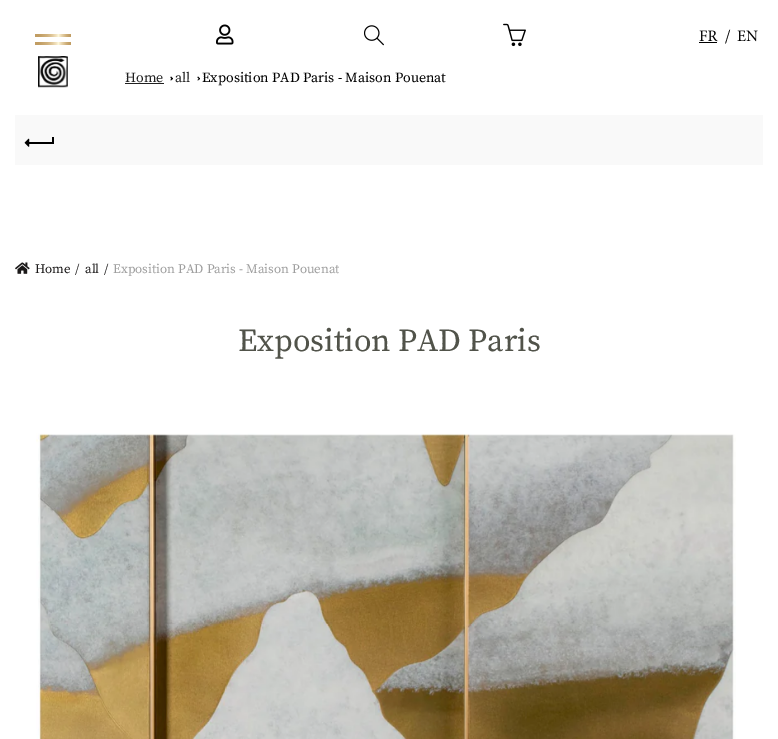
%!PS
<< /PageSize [778 739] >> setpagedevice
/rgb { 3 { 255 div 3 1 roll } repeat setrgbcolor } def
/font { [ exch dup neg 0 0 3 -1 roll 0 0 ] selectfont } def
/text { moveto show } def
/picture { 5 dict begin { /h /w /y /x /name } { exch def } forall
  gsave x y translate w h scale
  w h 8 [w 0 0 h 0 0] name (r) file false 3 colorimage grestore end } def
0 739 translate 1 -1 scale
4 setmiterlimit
255 255 255 rgb
0 0 778 739 rectfill
(img_01.rgb) 699 30 19 12 picture
0 0 0 rgb
699 42 18 1 rectfill
(img_02.rgb) 737 30 21 12 picture
gsave 35 34 moveto 36 0 rlineto 0 3 rlineto -36 0 rlineto closepath clip newpath
<< /ShadingType 2 /ColorSpace /DeviceRGB /Coords [35 36 71 36] /Extend [true true] /Function << /FunctionType 3 /Domain [0 1] /Functions [<< /FunctionType 2 /Domain [0 1] /C0 [0.757 0.616 0.388] /C1 [0.757 0.616 0.388] /N 1 >> << /FunctionType 2 /Domain [0 1] /C0 [0.757 0.616 0.388] /C1 [0.773 0.635 0.412] /N 1 >> << /FunctionType 2 /Domain [0 1] /C0 [0.773 0.635 0.412] /C1 [0.82 0.702 0.498] /N 1 >> << /FunctionType 2 /Domain [0 1] /C0 [0.82 0.702 0.498] /C1 [0.871 0.773 0.588] /N 1 >> << /FunctionType 2 /Domain [0 1] /C0 [0.871 0.773 0.588] /C1 [0.91 0.827 0.663] /N 1 >> << /FunctionType 2 /Domain [0 1] /C0 [0.91 0.827 0.663] /C1 [0.961 0.914 0.78] /N 1 >> << /FunctionType 2 /Domain [0 1] /C0 [0.961 0.914 0.78] /C1 [1 0.976 0.863] /N 1 >> << /FunctionType 2 /Domain [0 1] /C0 [1 0.976 0.863] /C1 [0.996 0.973 0.855] /N 1 >> << /FunctionType 2 /Domain [0 1] /C0 [0.996 0.973 0.855] /C1 [0.98 0.945 0.82] /N 1 >> << /FunctionType 2 /Domain [0 1] /C0 [0.98 0.945 0.82] /C1 [0.914 0.839 0.682] /N 1 >> << /FunctionType 2 /Domain [0 1] /C0 [0.914 0.839 0.682] /C1 [0.835 0.722 0.522] /N 1 >> << /FunctionType 2 /Domain [0 1] /C0 [0.835 0.722 0.522] /C1 [0.804 0.678 0.467] /N 1 >> << /FunctionType 2 /Domain [0 1] /C0 [0.804 0.678 0.467] /C1 [0.773 0.639 0.416] /N 1 >> << /FunctionType 2 /Domain [0 1] /C0 [0.773 0.639 0.416] /C1 [0.757 0.616 0.388] /N 1 >> << /FunctionType 2 /Domain [0 1] /C0 [0.757 0.616 0.388] /C1 [0.757 0.616 0.388] /N 1 >>] /Bounds [0.09 0.18 0.35 0.46 0.52 0.61 0.65 0.66 0.67 0.74 0.84 0.88 0.93 0.98] /Encode [0 1 0 1 0 1 0 1 0 1 0 1 0 1 0 1 0 1 0 1 0 1 0 1 0 1 0 1 0 1] >> >> shfill grestore
gsave 35 42 moveto 36 0 rlineto 0 3 rlineto -36 0 rlineto closepath clip newpath
<< /ShadingType 2 /ColorSpace /DeviceRGB /Coords [35 44 71 44] /Extend [true true] /Function << /FunctionType 3 /Domain [0 1] /Functions [<< /FunctionType 2 /Domain [0 1] /C0 [0.757 0.616 0.388] /C1 [0.757 0.616 0.388] /N 1 >> << /FunctionType 2 /Domain [0 1] /C0 [0.757 0.616 0.388] /C1 [0.773 0.635 0.412] /N 1 >> << /FunctionType 2 /Domain [0 1] /C0 [0.773 0.635 0.412] /C1 [0.82 0.702 0.498] /N 1 >> << /FunctionType 2 /Domain [0 1] /C0 [0.82 0.702 0.498] /C1 [0.871 0.773 0.588] /N 1 >> << /FunctionType 2 /Domain [0 1] /C0 [0.871 0.773 0.588] /C1 [0.91 0.827 0.663] /N 1 >> << /FunctionType 2 /Domain [0 1] /C0 [0.91 0.827 0.663] /C1 [0.961 0.914 0.78] /N 1 >> << /FunctionType 2 /Domain [0 1] /C0 [0.961 0.914 0.78] /C1 [1 0.976 0.863] /N 1 >> << /FunctionType 2 /Domain [0 1] /C0 [1 0.976 0.863] /C1 [0.996 0.973 0.855] /N 1 >> << /FunctionType 2 /Domain [0 1] /C0 [0.996 0.973 0.855] /C1 [0.98 0.945 0.82] /N 1 >> << /FunctionType 2 /Domain [0 1] /C0 [0.98 0.945 0.82] /C1 [0.914 0.839 0.682] /N 1 >> << /FunctionType 2 /Domain [0 1] /C0 [0.914 0.839 0.682] /C1 [0.835 0.722 0.522] /N 1 >> << /FunctionType 2 /Domain [0 1] /C0 [0.835 0.722 0.522] /C1 [0.804 0.678 0.467] /N 1 >> << /FunctionType 2 /Domain [0 1] /C0 [0.804 0.678 0.467] /C1 [0.773 0.639 0.416] /N 1 >> << /FunctionType 2 /Domain [0 1] /C0 [0.773 0.639 0.416] /C1 [0.757 0.616 0.388] /N 1 >> << /FunctionType 2 /Domain [0 1] /C0 [0.757 0.616 0.388] /C1 [0.757 0.616 0.388] /N 1 >>] /Bounds [0.09 0.18 0.35 0.46 0.52 0.61 0.65 0.66 0.67 0.74 0.84 0.88 0.93 0.98] /Encode [0 1 0 1 0 1 0 1 0 1 0 1 0 1 0 1 0 1 0 1 0 1 0 1 0 1 0 1 0 1] >> >> shfill grestore
(img_03.rgb) 216 24 18 21 picture
(img_04.rgb) 364 25 20 21 picture
(img_05.rgb) 503 23 23 24 picture
(img_06.rgb) 38 56 30 32 picture
32 32 32 rgb
125 83 39 1 rectfill
0 0 0 rgb
171 76.5 moveto 2 2 rlineto -1 1 rlineto -1.5 -2 rlineto closepath fill
249 249 249 rgb
15 115 748 50 rectfill
0 0 0 rgb
28 142 25 2 rectfill
(img_07.rgb) 24 138 6 9 picture
52 137 2 7 rectfill
(img_08.rgb) 15 262 15 12 picture
(img_09.rgb) 36 433 700 306 picture
/SourceSerifPro-Regular 16 font
(/) 725 41 text
/SourceSerifPro-Regular 14 font
32 32 32 rgb
(Home) 125 82 text
(all) 175 82 text
0 0 0 rgb
172 78 moveto 1 0.5 rlineto -2 2 rlineto -0.5 -0.5 rlineto closepath 198 76.5 moveto 2 2 rlineto -0.5 1 rlineto -2 -2 rlineto closepath fill
199.5 78 moveto 0.5 0.5 rlineto -2 2 rlineto -0.5 -0.5 rlineto closepath fill
(Exposition PAD Paris - Maison Pouenat) 202 82 text
/SourceSerifPro-Regular 13 font
27 25 25 rgb
(Home) 35 273 text
(/) 75 273 text
(all) 85 273 text
(/) 104 273 text
158 158 158 rgb
(Exposition PAD Paris - Maison Pouenat) 113 273 text
/SourceSerifPro-Regular 32 font
81 83 74 rgb
(Exposition PAD Paris) 238 351 text
showpage
